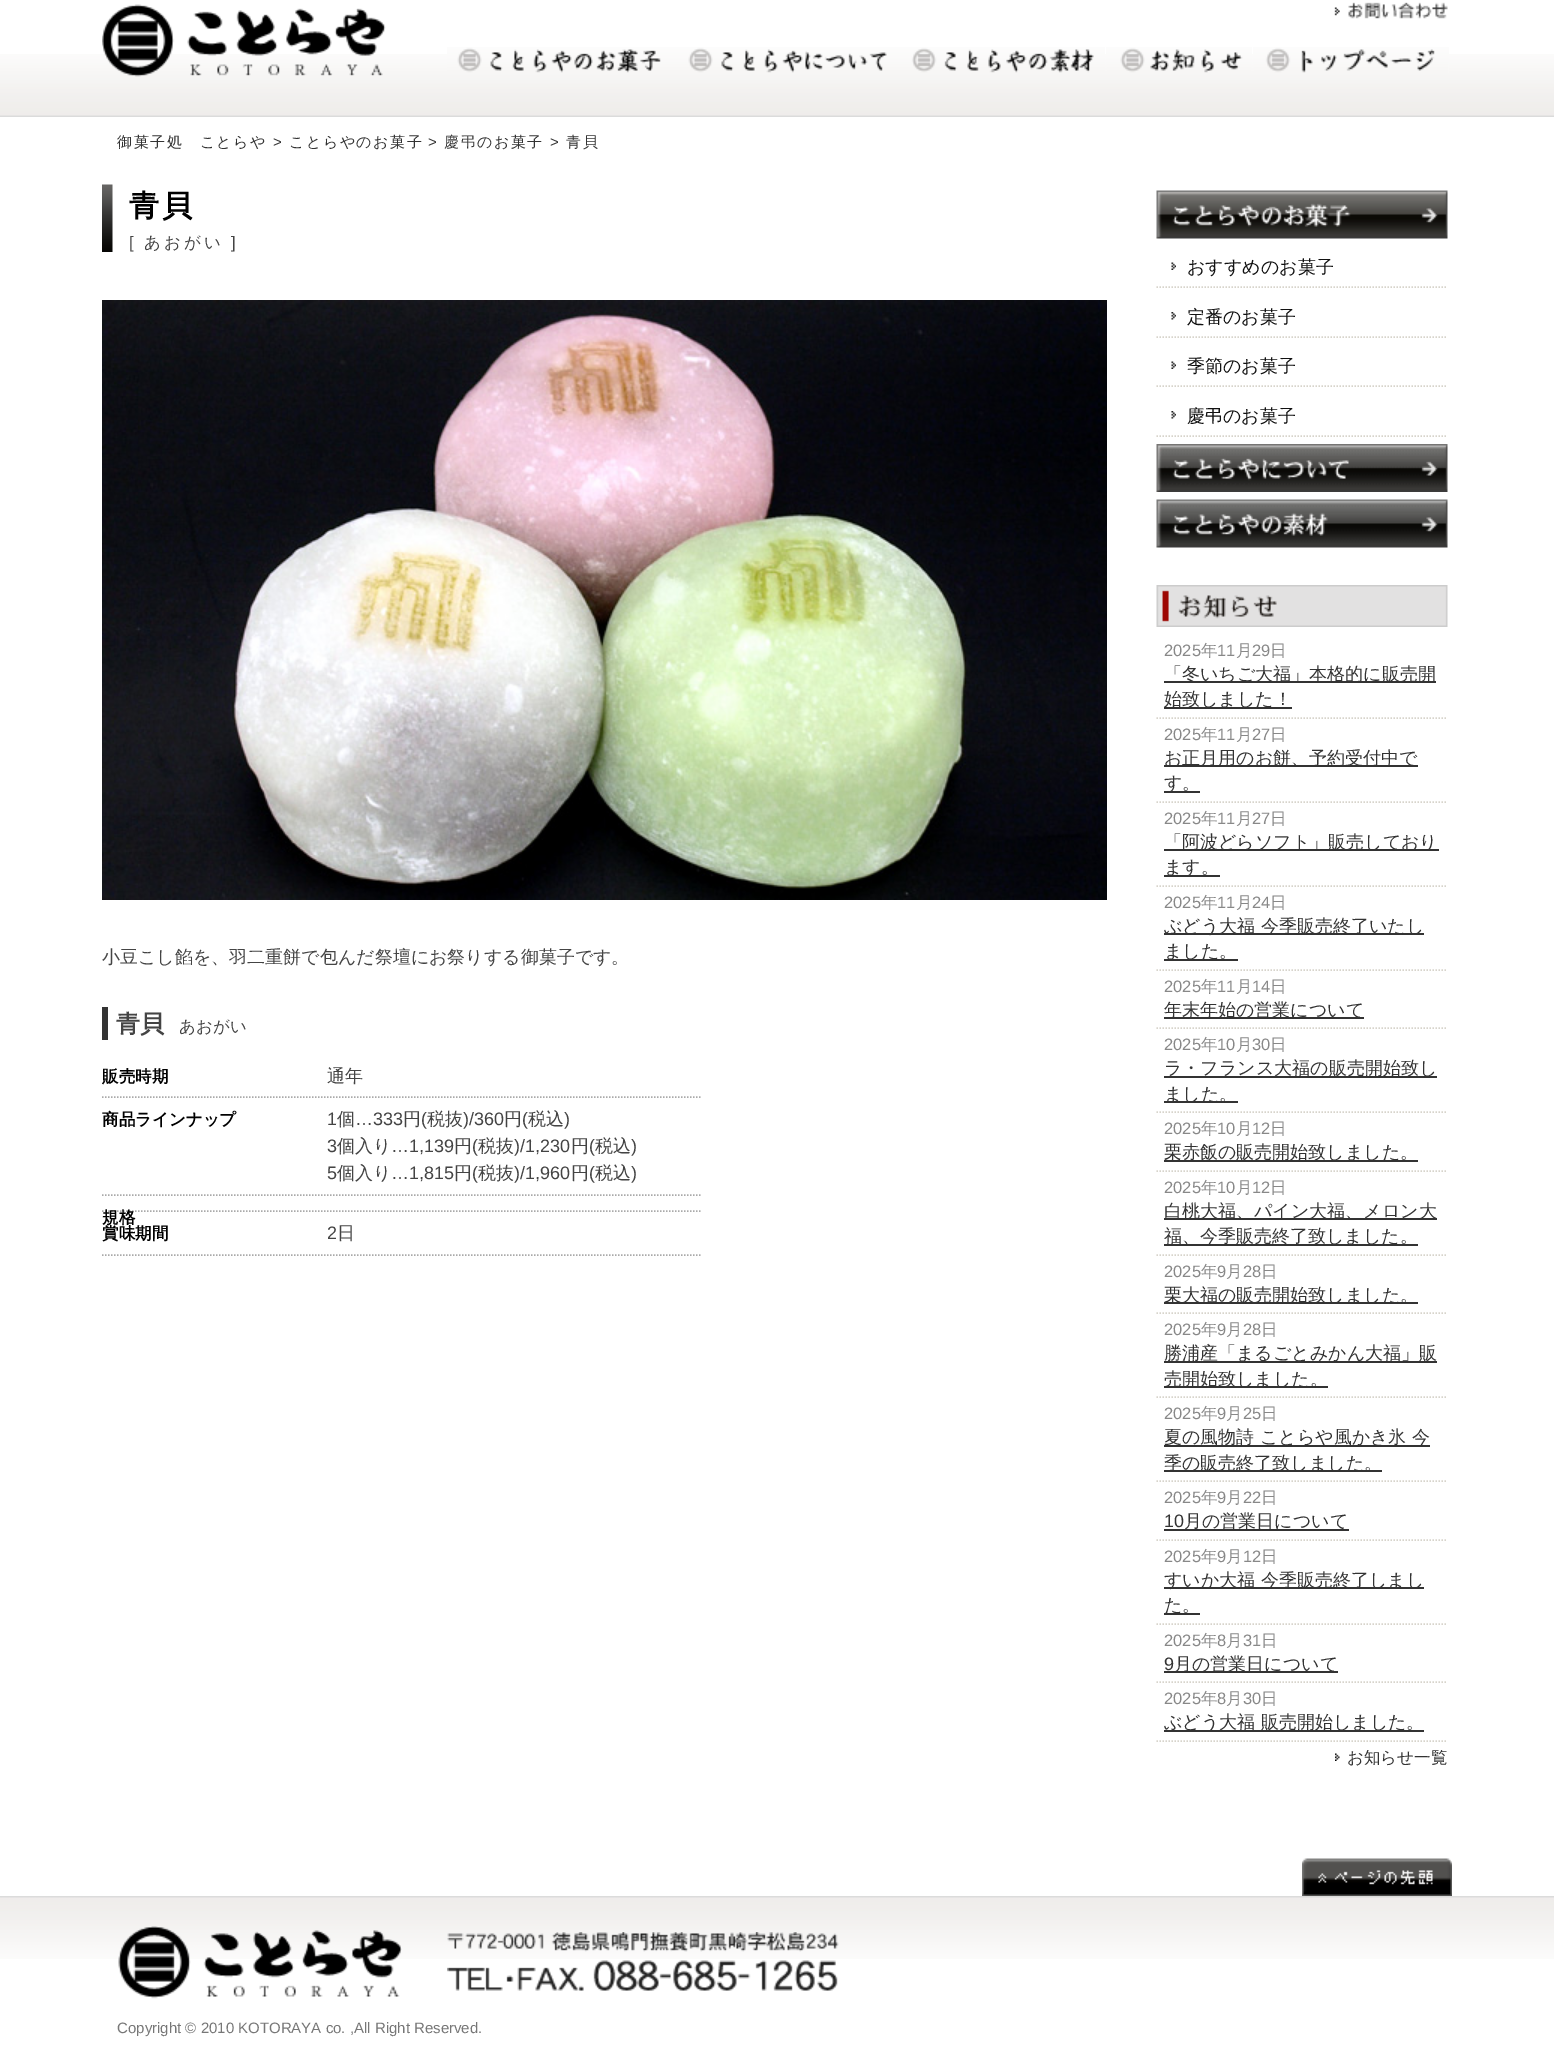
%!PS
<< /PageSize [1554 2065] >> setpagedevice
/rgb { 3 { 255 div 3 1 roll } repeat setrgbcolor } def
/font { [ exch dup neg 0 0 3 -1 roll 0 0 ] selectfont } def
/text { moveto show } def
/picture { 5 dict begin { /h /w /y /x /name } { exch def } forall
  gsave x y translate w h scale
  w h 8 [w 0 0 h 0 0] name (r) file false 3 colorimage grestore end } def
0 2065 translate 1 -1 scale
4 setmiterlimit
255 255 255 rgb
0 0 1554 2065 rectfill
(img_01.rgb) 0 54 1554 63 picture
(img_02.rgb) 102 4 284 73 picture
(img_03.rgb) 1334 2 114 17 picture
(img_04.rgb) 447 47 228 26 picture
(img_05.rgb) 675 47 225 26 picture
(img_06.rgb) 900 47 205 26 picture
(img_07.rgb) 1106 47 146 26 picture
(img_08.rgb) 1253 47 196 26 picture
(img_09.rgb) 102 184 11 68 picture
(img_10.rgb) 102 300 1005 600 picture
51 51 51 rgb
102 1007 6 33 rectfill
170 170 170 rgb
1.5 setlinewidth
[1.5 1.5] 0 setdash
102 1097 moveto 600 0 rlineto stroke
102 1195 moveto 600 0 rlineto stroke
102 1211 moveto 600 0 rlineto stroke
102 1255 moveto 600 0 rlineto stroke
(img_11.rgb) 1156 190 292 49 picture
(img_12.rgb) 1171 262 5 8 picture
215 212 203 rgb
1156.5 287 moveto 291 0 rlineto stroke
(img_13.rgb) 1171 312 5 8 picture
1156.5 337 moveto 291 0 rlineto stroke
(img_12.rgb) 1171 361 5 8 picture
1156.5 386 moveto 291 0 rlineto stroke
(img_13.rgb) 1171 411 5 8 picture
1156.5 436 moveto 291 0 rlineto stroke
(img_14.rgb) 1156 444 292 48 picture
(img_15.rgb) 1156 499 292 49 picture
(img_16.rgb) 1156 585 292 42 picture
1156.5 718 moveto 291 0 rlineto stroke
51 51 51 rgb
1164 681 272 2 rectfill
1164 707 128 2 rectfill
215 212 203 rgb
1156.5 802 moveto 291 0 rlineto stroke
51 51 51 rgb
1164 765 254 2 rectfill
1164 791 36 2 rectfill
215 212 203 rgb
1156.5 886 moveto 291 0 rlineto stroke
51 51 51 rgb
1164 849 275 2 rectfill
1164 875 56 2 rectfill
215 212 203 rgb
1156.5 970 moveto 291 0 rlineto stroke
51 51 51 rgb
1164 933 260 2 rectfill
1164 959 74 2 rectfill
215 212 203 rgb
1156.5 1028 moveto 291 0 rlineto stroke
51 51 51 rgb
1164 1017 200 2 rectfill
215 212 203 rgb
1156.5 1112 moveto 291 0 rlineto stroke
51 51 51 rgb
1164 1076 273 2 rectfill
1164 1101 74 2 rectfill
215 212 203 rgb
1156.5 1171 moveto 291 0 rlineto stroke
51 51 51 rgb
1164 1160 254 2 rectfill
215 212 203 rgb
1156.5 1255 moveto 291 0 rlineto stroke
51 51 51 rgb
1164 1218 273 2 rectfill
1164 1244 254 2 rectfill
215 212 203 rgb
1156.5 1313 moveto 291 0 rlineto stroke
51 51 51 rgb
1164 1302 254 2 rectfill
215 212 203 rgb
1156.5 1397 moveto 291 0 rlineto stroke
51 51 51 rgb
1164 1361 273 2 rectfill
1164 1386 164 2 rectfill
215 212 203 rgb
1156.5 1481 moveto 291 0 rlineto stroke
51 51 51 rgb
1164 1445 266 2 rectfill
1164 1470 218 2 rectfill
215 212 203 rgb
1156.5 1540 moveto 291 0 rlineto stroke
51 51 51 rgb
1164 1529 185 2 rectfill
215 212 203 rgb
1156.5 1624 moveto 291 0 rlineto stroke
51 51 51 rgb
1164 1587 260 2 rectfill
1164 1613 36 2 rectfill
215 212 203 rgb
1156.5 1682 moveto 291 0 rlineto stroke
51 51 51 rgb
1164 1671 174 2 rectfill
215 212 203 rgb
1156.5 1741 moveto 291 0 rlineto stroke
51 51 51 rgb
1164 1730 260 2 rectfill
(img_17.rgb) 1335 1753 5 8 picture
(img_18.rgb) 1302 1858 150 38 picture
(img_19.rgb) 0 1896 1554 63 picture
(img_20.rgb) 118 1926 284 73 picture
(img_21.rgb) 447 1932 392 59 picture
/WenQuanYiZenHei-Medium 15 font
117 147 moveto 1.5 0 (御菓子処　ことらや) ashow
/LiberationSans-Regular 15 font
273 147 moveto 1.5 0 (>) ashow
/WenQuanYiZenHei-Medium 15 font
289 147 moveto 1.5 0 (ことらやのお菓子) ashow
/LiberationSans-Regular 15 font
428 147 moveto 1.5 0 (>) ashow
/WenQuanYiZenHei-Medium 15 font
444 147 moveto 1.5 0 (慶弔のお菓子) ashow
/LiberationSans-Regular 15 font
550 147 moveto 1.5 0 (>) ashow
/WenQuanYiZenHei-Medium 15 font
566 147 moveto 1.5 0 (青貝) ashow
/WenQuanYiZenHei-Bold 30 font
0 0 0 rgb
129 216 moveto 3 0 (青貝) ashow
/LiberationSans-Regular 16.5 font
68 68 68 rgb
129 248 moveto 3 0 ([) ashow
/WenQuanYiZenHei-Medium 16.5 font
144 248 moveto 3 0 (あおがい) ashow
/LiberationSans-Regular 16.5 font
231 248 moveto 3 0 (]) ashow
/WenQuanYiZenHei-Medium 18 font
(小豆こし餡を、羽二重餅で包んだ祭壇にお祭りする御菓子です。) 102 963 text
/WenQuanYiZenHei-Bold 24 font
(青貝) 116 1032 text
/WenQuanYiZenHei-Medium 16.5 font
(あおがい) 179 1032 text
/WenQuanYiZenHei-Bold 16.5 font
0 0 0 rgb
(販売時期) 102 1082 text
/WenQuanYiZenHei-Medium 18 font
68 68 68 rgb
(通年) 327 1082 text
/WenQuanYiZenHei-Bold 16.5 font
0 0 0 rgb
(商品ラインナップ) 102 1125 text
/LiberationSans-Regular 18 font
68 68 68 rgb
(1) 327 1125 text
/WenQuanYiZenHei-Medium 18 font
(個) 337 1125 text
/LiberationSans-Regular 18 font
(…333) 355 1125 text
/WenQuanYiZenHei-Medium 18 font
(円) 403 1125 text
/LiberationSans-Regular 18 font
(\() 421 1125 text
/WenQuanYiZenHei-Medium 18 font
(税抜) 427 1125 text
/LiberationSans-Regular 18 font
(\)/360) 463 1125 text
/WenQuanYiZenHei-Medium 18 font
(円) 504 1125 text
/LiberationSans-Regular 18 font
(\() 522 1125 text
/WenQuanYiZenHei-Medium 18 font
(税込) 528 1125 text
/LiberationSans-Regular 18 font
(\)) 564 1125 text
(3) 327 1152 text
/WenQuanYiZenHei-Medium 18 font
(個入り) 337 1152 text
/LiberationSans-Regular 18 font
(…1,139) 391 1152 text
/WenQuanYiZenHei-Medium 18 font
(円) 454 1152 text
/LiberationSans-Regular 18 font
(\() 472 1152 text
/WenQuanYiZenHei-Medium 18 font
(税抜) 478 1152 text
/LiberationSans-Regular 18 font
(\)/1,230) 514 1152 text
/WenQuanYiZenHei-Medium 18 font
(円) 571 1152 text
/LiberationSans-Regular 18 font
(\() 589 1152 text
/WenQuanYiZenHei-Medium 18 font
(税込) 595 1152 text
/LiberationSans-Regular 18 font
(\)) 631 1152 text
(5) 327 1179 text
/WenQuanYiZenHei-Medium 18 font
(個入り) 337 1179 text
/LiberationSans-Regular 18 font
(…1,815) 391 1179 text
/WenQuanYiZenHei-Medium 18 font
(円) 454 1179 text
/LiberationSans-Regular 18 font
(\() 472 1179 text
/WenQuanYiZenHei-Medium 18 font
(税抜) 478 1179 text
/LiberationSans-Regular 18 font
(\)/1,960) 514 1179 text
/WenQuanYiZenHei-Medium 18 font
(円) 571 1179 text
/LiberationSans-Regular 18 font
(\() 589 1179 text
/WenQuanYiZenHei-Medium 18 font
(税込) 595 1179 text
/LiberationSans-Regular 18 font
(\)) 631 1179 text
/WenQuanYiZenHei-Bold 16.5 font
0 0 0 rgb
(規格) 102 1223 text
(賞味期間) 102 1239 text
/LiberationSans-Regular 18 font
68 68 68 rgb
(2) 327 1239 text
/WenQuanYiZenHei-Medium 18 font
(日) 337 1239 text
17 17 17 rgb
(おすすめのお菓子) 1187 273 text
(定番のお菓子) 1187 323 text
(季節のお菓子) 1187 372 text
(慶弔のお菓子) 1187 422 text
/LiberationSans-Regular 16.5 font
136 136 136 rgb
(2025) 1164 656 text
/WenQuanYiZenHei-Medium 16.5 font
(年) 1201 656 text
/LiberationSans-Regular 16.5 font
(11) 1217 656 text
/WenQuanYiZenHei-Medium 16.5 font
(月) 1236 656 text
/LiberationSans-Regular 16.5 font
(29) 1252 656 text
/WenQuanYiZenHei-Medium 16.5 font
(日) 1270 656 text
/WenQuanYiZenHei-Medium 18 font
51 51 51 rgb
(「冬いちご大福」本格的に販売開) 1164 680 text
(始致しました！) 1164 705 text
/LiberationSans-Regular 16.5 font
136 136 136 rgb
(2025) 1164 740 text
/WenQuanYiZenHei-Medium 16.5 font
(年) 1201 740 text
/LiberationSans-Regular 16.5 font
(11) 1217 740 text
/WenQuanYiZenHei-Medium 16.5 font
(月) 1236 740 text
/LiberationSans-Regular 16.5 font
(27) 1252 740 text
/WenQuanYiZenHei-Medium 16.5 font
(日) 1270 740 text
/WenQuanYiZenHei-Medium 18 font
51 51 51 rgb
(お正月用のお餅、予約受付中で) 1164 764 text
(す。) 1164 789 text
/LiberationSans-Regular 16.5 font
136 136 136 rgb
(2025) 1164 824 text
/WenQuanYiZenHei-Medium 16.5 font
(年) 1201 824 text
/LiberationSans-Regular 16.5 font
(11) 1217 824 text
/WenQuanYiZenHei-Medium 16.5 font
(月) 1236 824 text
/LiberationSans-Regular 16.5 font
(27) 1252 824 text
/WenQuanYiZenHei-Medium 16.5 font
(日) 1270 824 text
/WenQuanYiZenHei-Medium 18 font
51 51 51 rgb
(「阿波どらソフト」販売しており) 1164 848 text
(ます。) 1164 873 text
/LiberationSans-Regular 16.5 font
136 136 136 rgb
(2025) 1164 908 text
/WenQuanYiZenHei-Medium 16.5 font
(年) 1201 908 text
/LiberationSans-Regular 16.5 font
(11) 1217 908 text
/WenQuanYiZenHei-Medium 16.5 font
(月) 1236 908 text
/LiberationSans-Regular 16.5 font
(24) 1252 908 text
/WenQuanYiZenHei-Medium 16.5 font
(日) 1270 908 text
/WenQuanYiZenHei-Medium 18 font
51 51 51 rgb
(ぶどう大福 今季販売終了いたし) 1164 932 text
(ました。) 1164 957 text
/LiberationSans-Regular 16.5 font
136 136 136 rgb
(2025) 1164 992 text
/WenQuanYiZenHei-Medium 16.5 font
(年) 1201 992 text
/LiberationSans-Regular 16.5 font
(11) 1217 992 text
/WenQuanYiZenHei-Medium 16.5 font
(月) 1236 992 text
/LiberationSans-Regular 16.5 font
(14) 1252 992 text
/WenQuanYiZenHei-Medium 16.5 font
(日) 1270 992 text
/WenQuanYiZenHei-Medium 18 font
51 51 51 rgb
(年末年始の営業について) 1164 1016 text
/LiberationSans-Regular 16.5 font
136 136 136 rgb
(2025) 1164 1050 text
/WenQuanYiZenHei-Medium 16.5 font
(年) 1201 1050 text
/LiberationSans-Regular 16.5 font
(10) 1217 1050 text
/WenQuanYiZenHei-Medium 16.5 font
(月) 1236 1050 text
/LiberationSans-Regular 16.5 font
(30) 1252 1050 text
/WenQuanYiZenHei-Medium 16.5 font
(日) 1270 1050 text
/WenQuanYiZenHei-Medium 18 font
51 51 51 rgb
(ラ・フランス大福の販売開始致し) 1164 1074 text
(ました。) 1164 1100 text
/LiberationSans-Regular 16.5 font
136 136 136 rgb
(2025) 1164 1134 text
/WenQuanYiZenHei-Medium 16.5 font
(年) 1201 1134 text
/LiberationSans-Regular 16.5 font
(10) 1217 1134 text
/WenQuanYiZenHei-Medium 16.5 font
(月) 1236 1134 text
/LiberationSans-Regular 16.5 font
(12) 1252 1134 text
/WenQuanYiZenHei-Medium 16.5 font
(日) 1270 1134 text
/WenQuanYiZenHei-Medium 18 font
51 51 51 rgb
(栗赤飯の販売開始致しました。) 1164 1158 text
/LiberationSans-Regular 16.5 font
136 136 136 rgb
(2025) 1164 1193 text
/WenQuanYiZenHei-Medium 16.5 font
(年) 1201 1193 text
/LiberationSans-Regular 16.5 font
(10) 1217 1193 text
/WenQuanYiZenHei-Medium 16.5 font
(月) 1236 1193 text
/LiberationSans-Regular 16.5 font
(12) 1252 1193 text
/WenQuanYiZenHei-Medium 16.5 font
(日) 1270 1193 text
/WenQuanYiZenHei-Medium 18 font
51 51 51 rgb
(白桃大福、パイン大福、メロン大) 1164 1217 text
(福、今季販売終了致しました。) 1164 1242 text
/LiberationSans-Regular 16.5 font
136 136 136 rgb
(2025) 1164 1277 text
/WenQuanYiZenHei-Medium 16.5 font
(年) 1201 1277 text
/LiberationSans-Regular 16.5 font
(9) 1217 1277 text
/WenQuanYiZenHei-Medium 16.5 font
(月) 1226 1277 text
/LiberationSans-Regular 16.5 font
(28) 1243 1277 text
/WenQuanYiZenHei-Medium 16.5 font
(日) 1261 1277 text
/WenQuanYiZenHei-Medium 18 font
51 51 51 rgb
(栗大福の販売開始致しました。) 1164 1301 text
/LiberationSans-Regular 16.5 font
136 136 136 rgb
(2025) 1164 1335 text
/WenQuanYiZenHei-Medium 16.5 font
(年) 1201 1335 text
/LiberationSans-Regular 16.5 font
(9) 1217 1335 text
/WenQuanYiZenHei-Medium 16.5 font
(月) 1226 1335 text
/LiberationSans-Regular 16.5 font
(28) 1243 1335 text
/WenQuanYiZenHei-Medium 16.5 font
(日) 1261 1335 text
/WenQuanYiZenHei-Medium 18 font
51 51 51 rgb
(勝浦産「まるごとみかん大福」販) 1164 1359 text
(売開始致しました。) 1164 1385 text
/LiberationSans-Regular 16.5 font
136 136 136 rgb
(2025) 1164 1419 text
/WenQuanYiZenHei-Medium 16.5 font
(年) 1201 1419 text
/LiberationSans-Regular 16.5 font
(9) 1217 1419 text
/WenQuanYiZenHei-Medium 16.5 font
(月) 1226 1419 text
/LiberationSans-Regular 16.5 font
(25) 1243 1419 text
/WenQuanYiZenHei-Medium 16.5 font
(日) 1261 1419 text
/WenQuanYiZenHei-Medium 18 font
51 51 51 rgb
(夏の風物詩 ことらや風かき氷 今) 1164 1443 text
(季の販売終了致しました。) 1164 1469 text
/LiberationSans-Regular 16.5 font
136 136 136 rgb
(2025) 1164 1503 text
/WenQuanYiZenHei-Medium 16.5 font
(年) 1201 1503 text
/LiberationSans-Regular 16.5 font
(9) 1217 1503 text
/WenQuanYiZenHei-Medium 16.5 font
(月) 1226 1503 text
/LiberationSans-Regular 16.5 font
(22) 1243 1503 text
/WenQuanYiZenHei-Medium 16.5 font
(日) 1261 1503 text
/LiberationSans-Regular 18 font
51 51 51 rgb
(10) 1164 1527 text
/WenQuanYiZenHei-Medium 18 font
(月の営業日について) 1184 1527 text
/LiberationSans-Regular 16.5 font
136 136 136 rgb
(2025) 1164 1562 text
/WenQuanYiZenHei-Medium 16.5 font
(年) 1201 1562 text
/LiberationSans-Regular 16.5 font
(9) 1217 1562 text
/WenQuanYiZenHei-Medium 16.5 font
(月) 1226 1562 text
/LiberationSans-Regular 16.5 font
(12) 1243 1562 text
/WenQuanYiZenHei-Medium 16.5 font
(日) 1261 1562 text
/WenQuanYiZenHei-Medium 18 font
51 51 51 rgb
(すいか大福 今季販売終了しまし) 1164 1586 text
(た。) 1164 1611 text
/LiberationSans-Regular 16.5 font
136 136 136 rgb
(2025) 1164 1646 text
/WenQuanYiZenHei-Medium 16.5 font
(年) 1201 1646 text
/LiberationSans-Regular 16.5 font
(8) 1217 1646 text
/WenQuanYiZenHei-Medium 16.5 font
(月) 1226 1646 text
/LiberationSans-Regular 16.5 font
(31) 1243 1646 text
/WenQuanYiZenHei-Medium 16.5 font
(日) 1261 1646 text
/LiberationSans-Regular 18 font
51 51 51 rgb
(9) 1164 1670 text
/WenQuanYiZenHei-Medium 18 font
(月の営業日について) 1174 1670 text
/LiberationSans-Regular 16.5 font
136 136 136 rgb
(2025) 1164 1704 text
/WenQuanYiZenHei-Medium 16.5 font
(年) 1201 1704 text
/LiberationSans-Regular 16.5 font
(8) 1217 1704 text
/WenQuanYiZenHei-Medium 16.5 font
(月) 1226 1704 text
/LiberationSans-Regular 16.5 font
(30) 1243 1704 text
/WenQuanYiZenHei-Medium 16.5 font
(日) 1261 1704 text
/WenQuanYiZenHei-Medium 18 font
51 51 51 rgb
(ぶどう大福 販売開始しました。) 1164 1728 text
/WenQuanYiZenHei-Medium 16.5 font
(お知らせ一覧) 1347 1763 text
/LiberationSans-Regular 15 font
119 119 119 rgb
(Copyright © 2010 KOTORAYA co. ,All Right Reserved.) 117 2033 text
showpage
